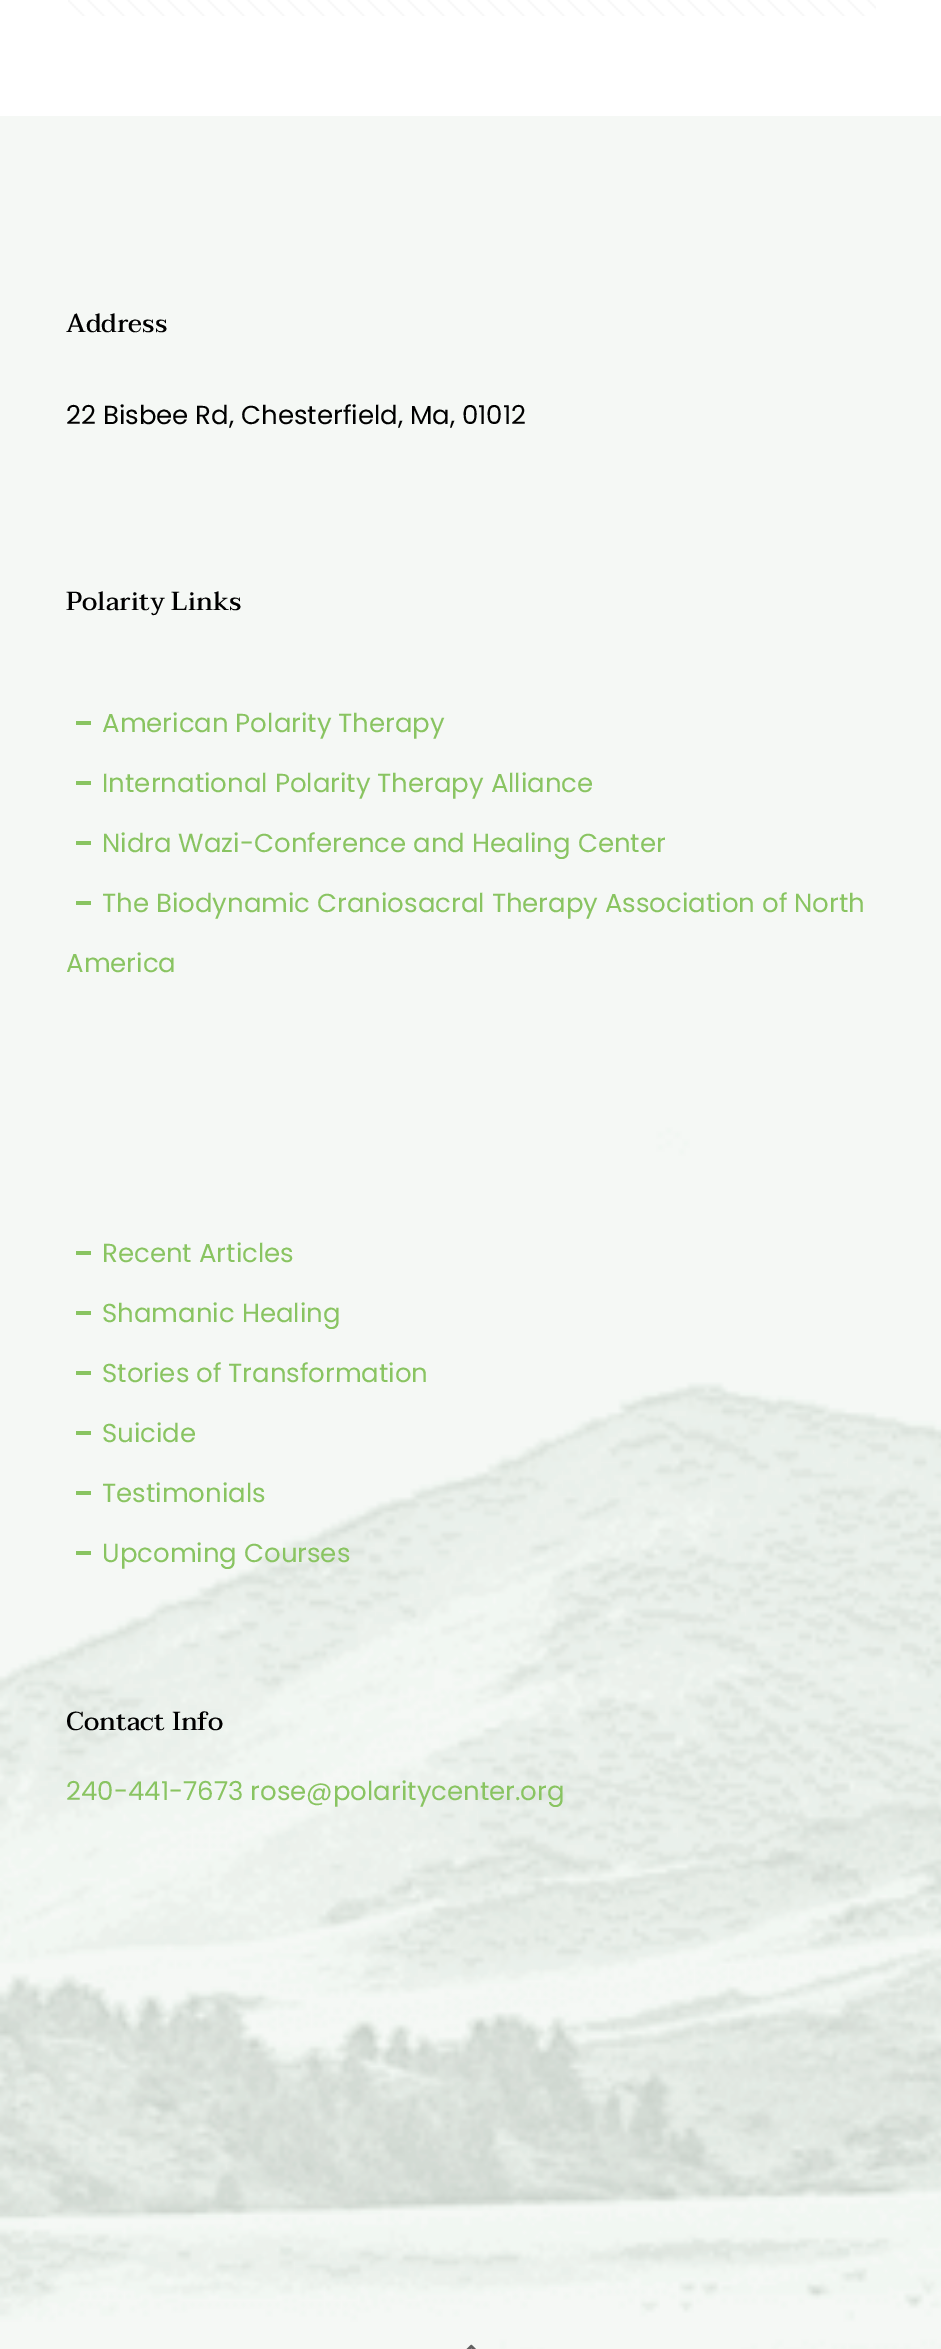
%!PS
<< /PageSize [941 2349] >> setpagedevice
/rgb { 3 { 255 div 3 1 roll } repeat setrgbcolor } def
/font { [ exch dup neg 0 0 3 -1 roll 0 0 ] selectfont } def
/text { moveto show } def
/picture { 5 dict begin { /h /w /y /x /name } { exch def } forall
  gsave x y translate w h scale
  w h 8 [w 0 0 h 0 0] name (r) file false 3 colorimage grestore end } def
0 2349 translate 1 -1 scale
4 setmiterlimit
255 255 255 rgb
0 0 941 2349 rectfill
(img_01.rgb) 68 0 808 16 picture
239 244 240 rgb
0 116 941 2233 rectfill
(img_02.rgb) 0 116 941 2233 picture
137 196 97 rgb
76 721 15 4 rectfill
76 781 15 4 rectfill
76 841 15 4 rectfill
76 901 15 4 rectfill
76 1251 15 4 rectfill
76 1311 15 4 rectfill
76 1371 15 4 rectfill
76 1431 15 4 rectfill
76 1491 15 4 rectfill
76 1551 15 4 rectfill
(img_03.rgb) 466 2344 10 5 picture
/Taviraj-Medium 26 font
0 0 0 rgb
(Address) 66 332 text
/Poppins-Regular 26 font
(22 Bisbee Rd, Chesterfield, Ma, 01012) 66 424 text
/Taviraj-Medium 26 font
(Polarity Links) 66 610 text
/Poppins-Regular 26 font
137 196 97 rgb
(American Polarity Therapy) 102 732 text
(International Polarity Therapy Alliance) 102 792 text
(Nidra Wazi-Conference and Healing Center) 102 852 text
(The Biodynamic Craniosacral Therapy Association of North) 102 912 text
(America) 66 972 text
(Recent Articles) 102 1262 text
(Shamanic Healing) 102 1322 text
(Stories of Transformation) 102 1382 text
(Suicide) 102 1442 text
(Testimonials) 102 1502 text
(Upcoming Courses) 102 1562 text
/Taviraj-Medium 26 font
0 0 0 rgb
(Contact Info) 66 1730 text
/Poppins-Regular 26 font
137 196 97 rgb
(240-441-7673 rose@polaritycenter.org) 66 1800 text
showpage
